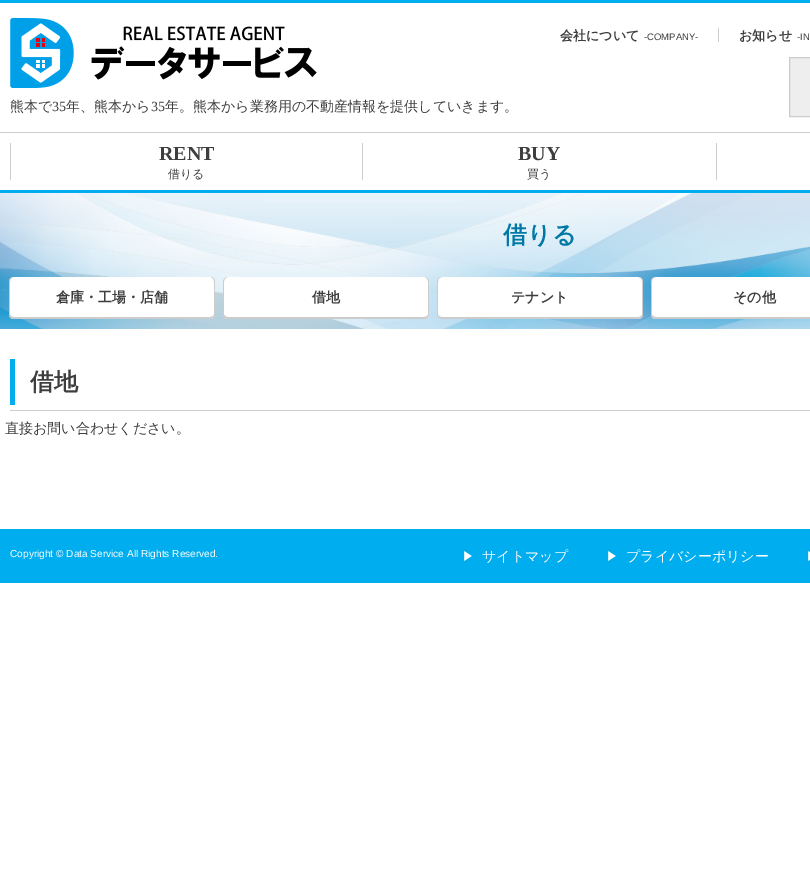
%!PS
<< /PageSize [810 883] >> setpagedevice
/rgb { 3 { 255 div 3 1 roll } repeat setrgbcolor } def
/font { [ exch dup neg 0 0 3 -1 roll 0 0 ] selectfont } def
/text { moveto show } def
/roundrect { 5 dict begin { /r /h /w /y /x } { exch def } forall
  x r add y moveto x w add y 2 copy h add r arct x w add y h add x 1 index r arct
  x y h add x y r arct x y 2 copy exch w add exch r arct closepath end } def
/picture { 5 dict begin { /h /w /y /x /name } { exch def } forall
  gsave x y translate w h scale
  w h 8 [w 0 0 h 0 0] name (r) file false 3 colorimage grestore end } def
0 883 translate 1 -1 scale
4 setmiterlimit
255 255 255 rgb
0 0 810 883 rectfill
0 174 239 rgb
0 0 810 3 rectfill
(img_01.rgb) 10 18 307 70 picture
204 204 204 rgb
718 28 1 14 rectfill
238 238 238 rgb
789.5 57.5 moveto 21 0 rlineto 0 59 rlineto -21 0 rlineto closepath gsave fill grestore
204 204 204 rgb
stroke
0 132 810 1 rectfill
0 174 239 rgb
0 190 810 3 rectfill
204 204 204 rgb
362 143 1 37 rectfill
10 143 1 37 rectfill
716 143 1 37 rectfill
(img_02.rgb) 0 193 810 136 picture
255 255 255 rgb
9 277 206 42 5 roundrect fill
204 204 204 rgb
14 277 moveto 196 0 rlineto 3 0 5 2 5 5 rcurveto 0 32 rlineto 0 3 -2 5 -5 5 rcurveto -196 0 rlineto -3 0 -5 -2 -5 -5 rcurveto 0 -32 rlineto 0 -3 2 -5 5 -5 rcurveto closepath 14 277 moveto 196 0 rlineto 2 0 4 2 4 5 rcurveto 0 32 rlineto 0 2 -2 3 -4 3 rcurveto -196 0 rlineto -2 0 -4 -1 -4 -3 rcurveto 0 -32 rlineto 0 -3 2 -5 4 -5 rcurveto closepath eofill
255 255 255 rgb
223 277 206 42 5 roundrect fill
204 204 204 rgb
228 277 moveto 196 0 rlineto 3 0 5 2 5 5 rcurveto 0 32 rlineto 0 3 -2 5 -5 5 rcurveto -196 0 rlineto -3 0 -5 -2 -5 -5 rcurveto 0 -32 rlineto 0 -3 2 -5 5 -5 rcurveto closepath 228 277 moveto 196 0 rlineto 2 0 4 2 4 5 rcurveto 0 32 rlineto 0 2 -2 3 -4 3 rcurveto -196 0 rlineto -2 0 -4 -1 -4 -3 rcurveto 0 -32 rlineto 0 -3 2 -5 4 -5 rcurveto closepath eofill
255 255 255 rgb
437 277 206 42 5 roundrect fill
204 204 204 rgb
442 277 moveto 196 0 rlineto 3 0 5 2 5 5 rcurveto 0 32 rlineto 0 3 -2 5 -5 5 rcurveto -196 0 rlineto -3 0 -5 -2 -5 -5 rcurveto 0 -32 rlineto 0 -3 2 -5 5 -5 rcurveto closepath 442 277 moveto 196 0 rlineto 2 0 4 2 4 5 rcurveto 0 32 rlineto 0 2 -2 3 -4 3 rcurveto -196 0 rlineto -2 0 -4 -1 -4 -3 rcurveto 0 -32 rlineto 0 -3 2 -5 4 -5 rcurveto closepath eofill
255 255 255 rgb
651 277 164 42 5 roundrect fill
204 204 204 rgb
656 277 moveto 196 0 rlineto 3 0 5 2 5 5 rcurveto 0 32 rlineto 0 3 -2 5 -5 5 rcurveto -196 0 rlineto -3 0 -5 -2 -5 -5 rcurveto 0 -32 rlineto 0 -3 2 -5 5 -5 rcurveto closepath 656 277 moveto 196 0 rlineto 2 0 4 2 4 5 rcurveto 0 32 rlineto 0 2 -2 3 -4 3 rcurveto -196 0 rlineto -2 0 -4 -1 -4 -3 rcurveto 0 -32 rlineto 0 -3 2 -5 4 -5 rcurveto closepath eofill
10 410 800 1 rectfill
0 174 239 rgb
10 359 5 46 rectfill
0 529 810 54 rectfill
(img_03.rgb) 464 551 8 10 picture
(img_03.rgb) 608 551 8 10 picture
(img_04.rgb) 808 551 2 10 picture
/WenQuanYiZenHei-Bold 13 font
62 62 62 rgb
(会社について) 560 40 text
/LiberationSans-Regular 9.5 font
(-COMPANY-) 644 40 text
/WenQuanYiZenHei-Bold 13 font
(お知らせ) 739 40 text
/LiberationSans-Regular 9.5 font
(-IN) 797 40 text
/WenQuanYiZenHei-Medium 14 font
(熊本で) 10 111 text
/LiberationSerif-Regular 14 font
(35) 52 111 text
/WenQuanYiZenHei-Medium 14 font
(年、熊本から) 66 111 text
/LiberationSerif-Regular 14 font
(35) 151 111 text
/WenQuanYiZenHei-Medium 14 font
(年。熊本から業務用の不動産情報を提供していきます。) 165 111 text
/LiberationSerif-Bold 20 font
(RENT) 159 160 text
/WenQuanYiZenHei-Medium 12 font
(借りる) 168 178 text
/LiberationSerif-Bold 20 font
(BUY) 518 160 text
/WenQuanYiZenHei-Medium 12 font
(買う) 527 178 text
/WenQuanYiZenHei-Bold 24 font
0 120 166 rgb
(借りる) 503 243 text
/WenQuanYiZenHei-Bold 14 font
62 62 62 rgb
(倉庫・工場・店舗) 56 302 text
(借地) 312 302 text
(テナント) 511 302 text
(その他) 733 302 text
/WenQuanYiZenHei-Bold 24 font
(借地) 30 390 text
/WenQuanYiZenHei-Medium 14 font
(直接お問い合わせください。) 5 433 text
/LiberationSans-Regular 10.1 font
255 255 255 rgb
(Copyright © Data Service All Rights Reserved.) 10 557 text
/WenQuanYiZenHei-Medium 14 font
(サイトマップ) 482 561 text
(プライバシーポリシー) 626 561 text
showpage
